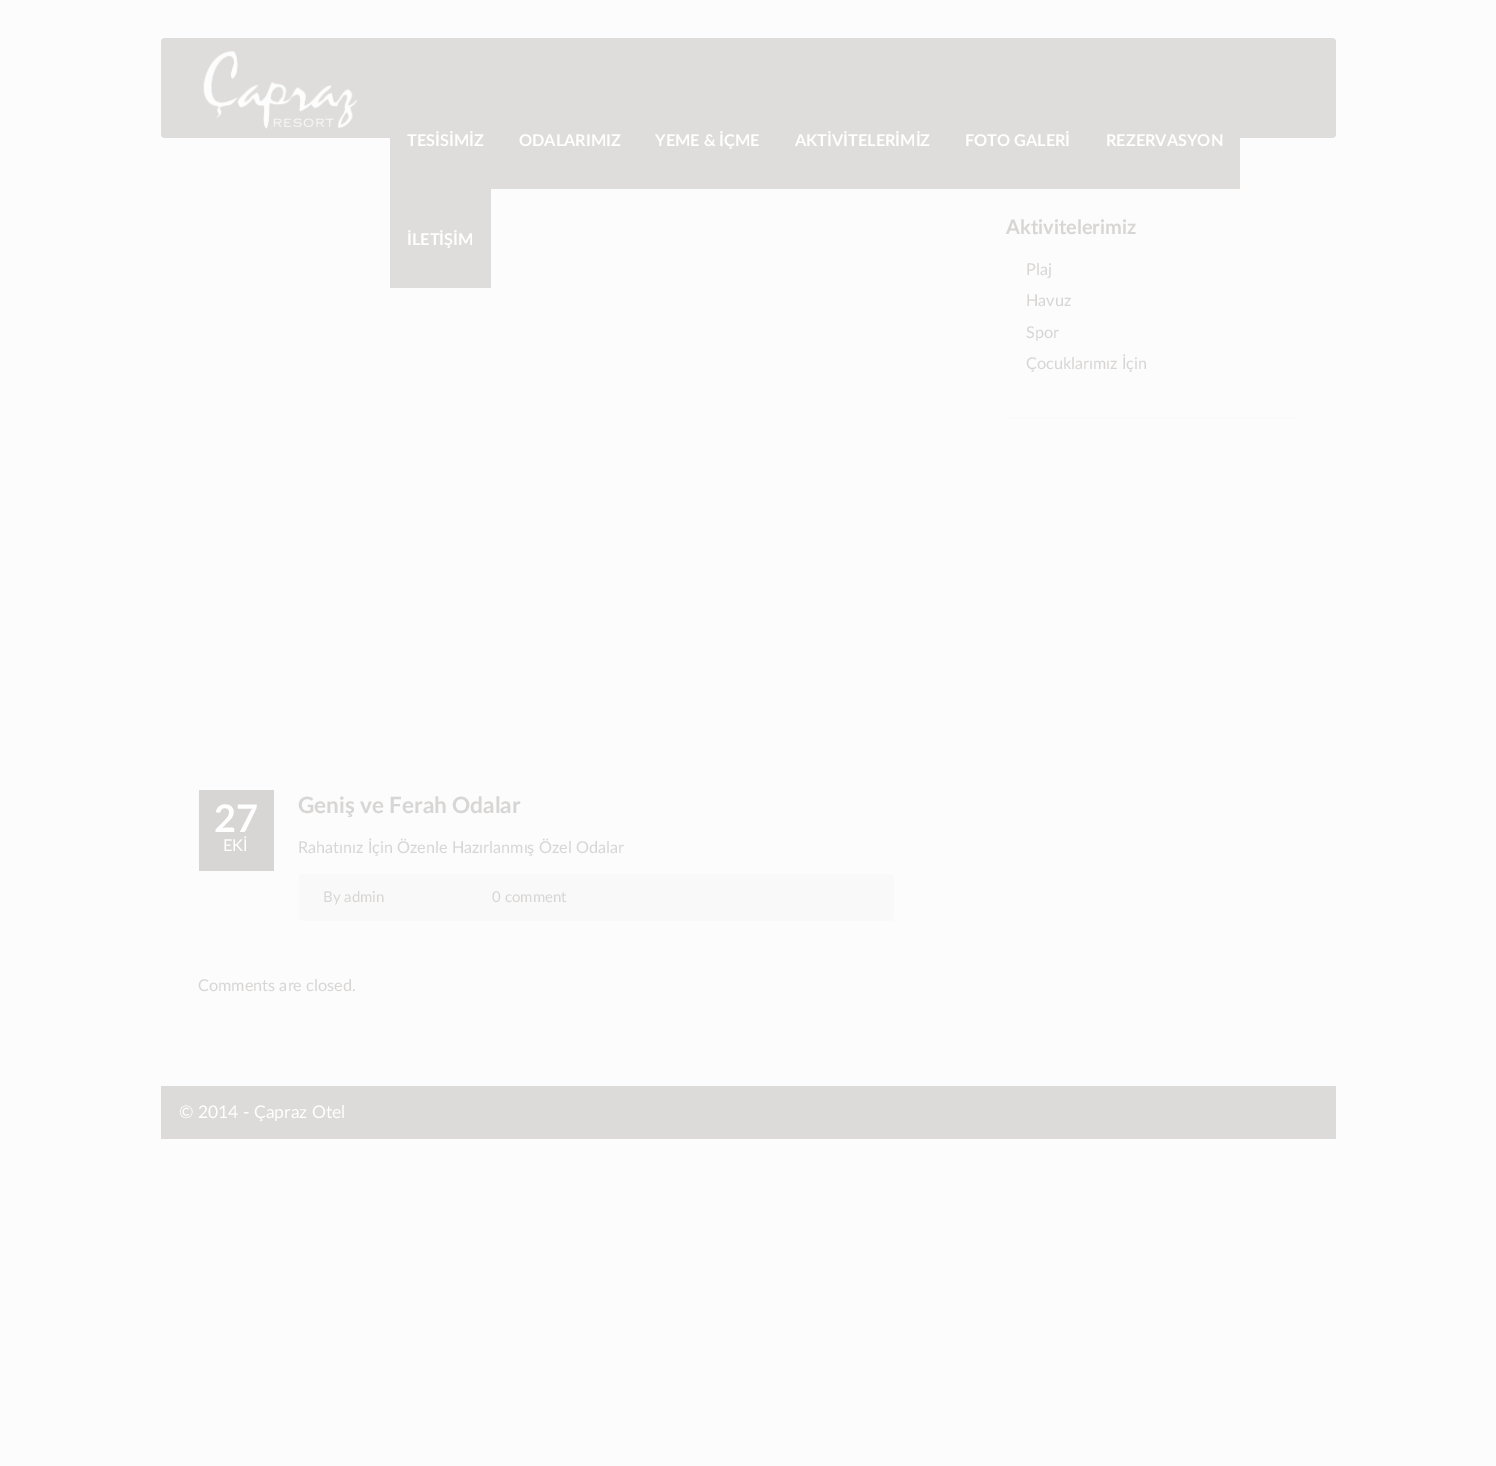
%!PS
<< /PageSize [1496 1466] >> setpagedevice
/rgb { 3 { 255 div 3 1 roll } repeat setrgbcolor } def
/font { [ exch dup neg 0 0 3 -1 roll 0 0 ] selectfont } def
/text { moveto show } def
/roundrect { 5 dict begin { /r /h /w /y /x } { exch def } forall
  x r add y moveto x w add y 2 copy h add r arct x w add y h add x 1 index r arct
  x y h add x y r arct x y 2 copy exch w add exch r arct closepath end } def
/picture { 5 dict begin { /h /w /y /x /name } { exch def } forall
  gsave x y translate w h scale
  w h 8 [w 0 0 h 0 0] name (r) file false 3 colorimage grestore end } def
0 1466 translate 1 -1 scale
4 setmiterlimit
252 252 252 rgb
0 0 1496 1466 rectfill
222 221 219 rgb
1088 138 152 51 rectfill
948 138 140 51 rectfill
161 38 1175 100 4 roundrect fill
(img_01.rgb) 203 51 155 78 picture
390 138 558 51 rectfill
390 189 101 99 rectfill
254 254 254 rgb
969 175 119 14 rectfill
222 221 219 rgb
969 175 119 14 rectfill
249 249 249 rgb
1006 418 292 1 rectfill
216 214 213 rgb
199 790 75 81 rectfill
249 249 249 rgb
299 874 595 47 4 roundrect fill
220 219 218 rgb
161 1086 1175 53 rectfill
/Lato-Bold 16.25 font
255 255 255 rgb
(TESİSİMİZ) 407 146 text
(ODALARIMIZ) 519 146 text
(YEME & İÇME) 655 146 text
(AKTİVİTELERİMİZ) 795 146 text
(FOTO GALERİ) 965 146 text
(REZERVASYON) 1106 146 text
(İLETİŞİM) 407 245 text
/Lato-Bold 20 font
216 214 213 rgb
(Aktivitelerimiz) 1006 234 text
/Lato-Regular 16.25 font
(Plaj) 1026 275 text
(Havuz) 1026 306 text
(Spor) 1026 338 text
(Çocuklarımız İçin) 1026 369 text
/Lato-Bold 38 font
255 255 255 rgb
(27) 214 832 text
/Lato-Regular 16.25 font
(EKİ) 223 851 text
/Lato-Bold 22.5 font
216 214 213 rgb
(Geniş ve Ferah Odalar) 298 813 text
/Lato-Regular 16.25 font
(Rahatınız İçin Özenle Hazırlanmış Özel Odalar) 298 853 text
/Lato-Regular 15 font
(By admin) 323 902 text
(0 comment) 492 902 text
/Lato-Regular 16.25 font
(Comments are closed.) 198 991 text
/Lato-Regular 17.5 font
255 255 255 rgb
(© 2014 - Çapraz Otel) 179 1118 text
showpage
